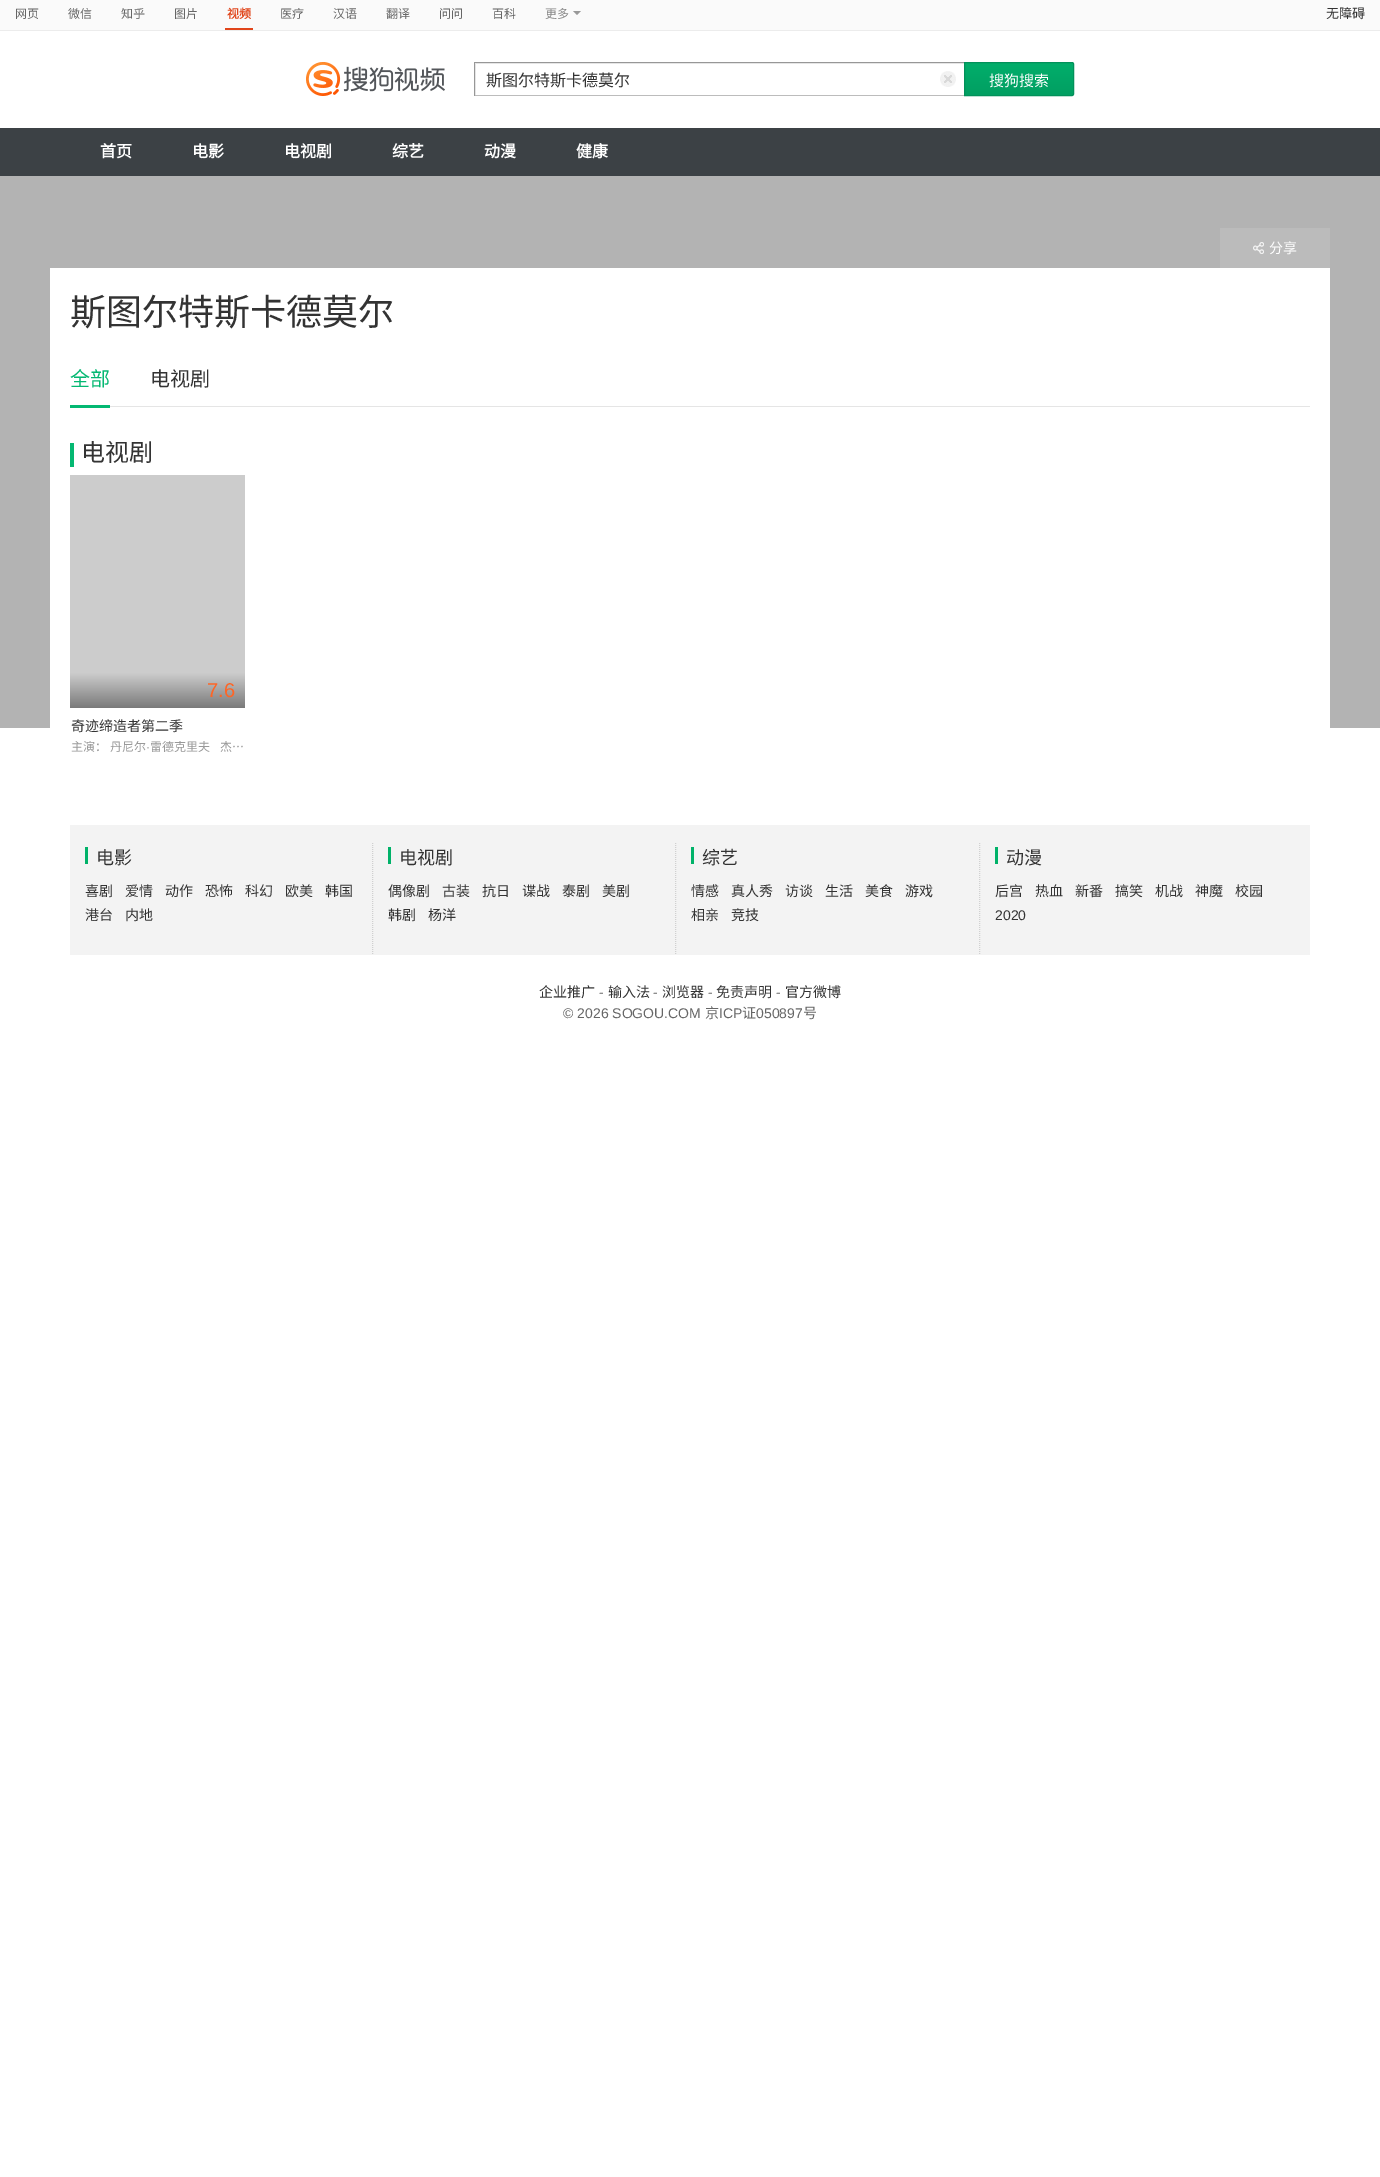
%!PS
<< /PageSize [1380 2177] >> setpagedevice
/rgb { 3 { 255 div 3 1 roll } repeat setrgbcolor } def
/font { [ exch dup neg 0 0 3 -1 roll 0 0 ] selectfont } def
/text { moveto show } def
/picture { 5 dict begin { /h /w /y /x /name } { exch def } forall
  gsave x y translate w h scale
  w h 8 [w 0 0 h 0 0] name (r) file false 3 colorimage grestore end } def
0 2177 translate 1 -1 scale
4 setmiterlimit
255 255 255 rgb
0 0 1380 2177 rectfill
250 250 250 rgb
0 0 1380 30 rectfill
236 236 236 rgb
0 30 1380 1 rectfill
225 69 27 rgb
225 28 28 2 rectfill
153 153 153 rgb
573 11 moveto 8 0 rlineto -4 4 rlineto closepath fill
(img_01.rgb) 306 62 139 34 picture
151 151 151 rgb
474 62 490 1 rectfill
188 188 188 rgb
474 95 490 1 rectfill
151 151 151 rgb
474 62 1 34 rectfill
229 229 229 rgb
475 63 489 1 rectfill
475 63 1 32 rectfill
(img_02.rgb) 940 71 16 16 picture
gsave 965 63 moveto 109 0 rlineto 0 32 rlineto -109 0 rlineto closepath clip newpath
<< /ShadingType 2 /ColorSpace /DeviceRGB /Coords [1019 63 1019 95] /Extend [true true] /Function << /FunctionType 2 /Domain [0 1] /C0 [0.008 0.682 0.42] /C1 [0.004 0.624 0.384] /N 1 >> >> shfill grestore
2 145 90 rgb
964.5 62.5 moveto 107.5 0 rlineto 1 0 1.5 0.5 1.5 1.5 rcurveto 0 30 rlineto 0 1 -0.5 1.5 -1.5 1.5 rcurveto -107.5 0 rlineto closepath stroke
60 65 69 rgb
0 128 1380 48 rectfill
179 179 179 rgb
0 176 1380 552 rectfill
255 255 255 rgb
50 268 1280 460 rectfill
187 187 187 rgb
1220 228 110 40 rectfill
(img_03.rgb) 1253 242 11 12 picture
229 229 229 rgb
110 406 1200 1 rectfill
4 184 114 rgb
70 405 40 3 rectfill
70 443 4 24 rectfill
204 204 204 rgb
70 475 175 198 rectfill
gsave 70 673 moveto 175 0 rlineto 0 35 rlineto -175 0 rlineto closepath clip newpath
<< /ShadingType 2 /ColorSpace /DeviceRGB /Coords [70 673 70 708] /Extend [true true] /Function << /FunctionType 2 /Domain [0 1] /C0 [0.8 0.8 0.8] /C1 [0.478 0.478 0.478] /N 1 >> >> shfill grestore
243 243 243 rgb
70 825 1240 130 rectfill
0 178 105 rgb
85 847 3 17 rectfill
gsave
70 825 1240 130 rectclip
208 208 208 rgb
[1 1] 0 setdash
372.5 843 moveto 0 121 rlineto stroke
grestore
388 847 3 17 rectfill
gsave
70 825 1240 130 rectclip
208 208 208 rgb
[1 1] 0 setdash
675.5 843 moveto 0 121 rlineto stroke
grestore
691 847 3 17 rectfill
gsave
70 825 1240 130 rectclip
208 208 208 rgb
[1 1] 0 setdash
979.5 843 moveto 0 121 rlineto stroke
grestore
995 847 3 17 rectfill
/NotoSansCJKSC-Regular 12 font
102 102 102 rgb
(网页) 15 18 text
(微信) 68 18 text
(知乎) 121 18 text
(图片) 174 18 text
/NotoSansCJKSC-Bold 12 font
225 69 27 rgb
(视频) 227 18 text
/NotoSansCJKSC-Regular 12 font
102 102 102 rgb
(医疗) 280 18 text
(汉语) 333 18 text
(翻译) 386 18 text
(问问) 439 18 text
(百科) 492 18 text
136 136 136 rgb
(更多) 545 18 text
/NotoSansCJKSC-Regular 13 font
51 51 51 rgb
(无障碍) 1326 18 text
/NotoSansCJKSC-Regular 16 font
(斯图尔特斯卡德莫尔) 486 86 text
/NotoSansCJKSC-Regular 15 font
255 255 255 rgb
(搜狗搜索) 989 86 text
/NotoSansCJKSC-Bold 16 font
(首页) 100 157 text
(电影) 192 157 text
(电视剧) 284 157 text
(综艺) 392 157 text
(动漫) 484 157 text
(健康) 576 157 text
/NotoSansCJKSC-Regular 14 font
(分享) 1269 253 text
/NotoSansCJKSC-Regular 36 font
51 51 51 rgb
(斯图尔特斯卡德莫尔) 70 325 text
/NotoSansCJKSC-Regular 20 font
4 184 114 rgb
(全部) 70 386 text
51 51 51 rgb
(电视剧) 150 386 text
/NotoSansCJKSC-Regular 24 font
(电视剧) 81 461 text
/LiberationSans-Regular 20 font
255 101 37 rgb
(7.6) 207 697 text
/NotoSansCJKSC-Regular 14 font
51 51 51 rgb
(奇迹缔造者第二季) 71 731 text
/NotoSansCJKSC-Regular 12 font
153 153 153 rgb
(主演：) 71 751 text
(丹尼尔) 110 751 text
/LiberationSans-Regular 12 font
(·) 146 751 text
/NotoSansCJKSC-Regular 12 font
(雷德克里夫) 150 751 text
(杰…) 220 751 text
/NotoSansCJKSC-Regular 18 font
51 51 51 rgb
(电影) 96 864 text
/NotoSansCJKSC-Regular 14 font
(喜剧) 85 896 text
(爱情) 125 896 text
(动作) 165 896 text
(恐怖) 205 896 text
(科幻) 245 896 text
(欧美) 285 896 text
(韩国) 325 896 text
(港台) 85 920 text
(内地) 125 920 text
/NotoSansCJKSC-Regular 18 font
(电视剧) 399 864 text
/NotoSansCJKSC-Regular 14 font
(偶像剧) 388 896 text
(古装) 442 896 text
(抗日) 482 896 text
(谍战) 522 896 text
(泰剧) 562 896 text
(美剧) 602 896 text
(韩剧) 388 920 text
(杨洋) 428 920 text
/NotoSansCJKSC-Regular 18 font
(综艺) 702 864 text
/NotoSansCJKSC-Regular 14 font
(情感) 691 896 text
(真人秀) 731 896 text
(访谈) 785 896 text
(生活) 825 896 text
(美食) 865 896 text
(游戏) 905 896 text
(相亲) 691 920 text
(竞技) 731 920 text
/NotoSansCJKSC-Regular 18 font
(动漫) 1006 864 text
/NotoSansCJKSC-Regular 14 font
(后宫) 995 896 text
(热血) 1035 896 text
(新番) 1075 896 text
(搞笑) 1115 896 text
(机战) 1155 896 text
(神魔) 1195 896 text
(校园) 1235 896 text
/LiberationSans-Regular 14 font
(2020) 995 920 text
/NotoSansCJKSC-Regular 14 font
(企业推广) 539 997 text
/LiberationSans-Regular 14 font
102 102 102 rgb
(-) 599 997 text
/NotoSansCJKSC-Regular 14 font
51 51 51 rgb
(输入法) 608 997 text
/LiberationSans-Regular 14 font
102 102 102 rgb
(-) 653 997 text
/NotoSansCJKSC-Regular 14 font
51 51 51 rgb
(浏览器) 662 997 text
/LiberationSans-Regular 14 font
102 102 102 rgb
(-) 708 997 text
/NotoSansCJKSC-Regular 14 font
51 51 51 rgb
(免责声明) 716 997 text
/LiberationSans-Regular 14 font
102 102 102 rgb
(-) 776 997 text
/NotoSansCJKSC-Regular 14 font
51 51 51 rgb
(官方微博) 785 997 text
/LiberationSans-Regular 14 font
102 102 102 rgb
(© 2026 SOGOU.COM) 563 1018 text
/NotoSansCJKSC-Regular 14 font
(京) 705 1018 text
/LiberationSans-Regular 14 font
(ICP) 719 1018 text
/NotoSansCJKSC-Regular 14 font
(证) 742 1018 text
/LiberationSans-Regular 14 font
(050897) 756 1018 text
/NotoSansCJKSC-Regular 14 font
(号) 803 1018 text
showpage
